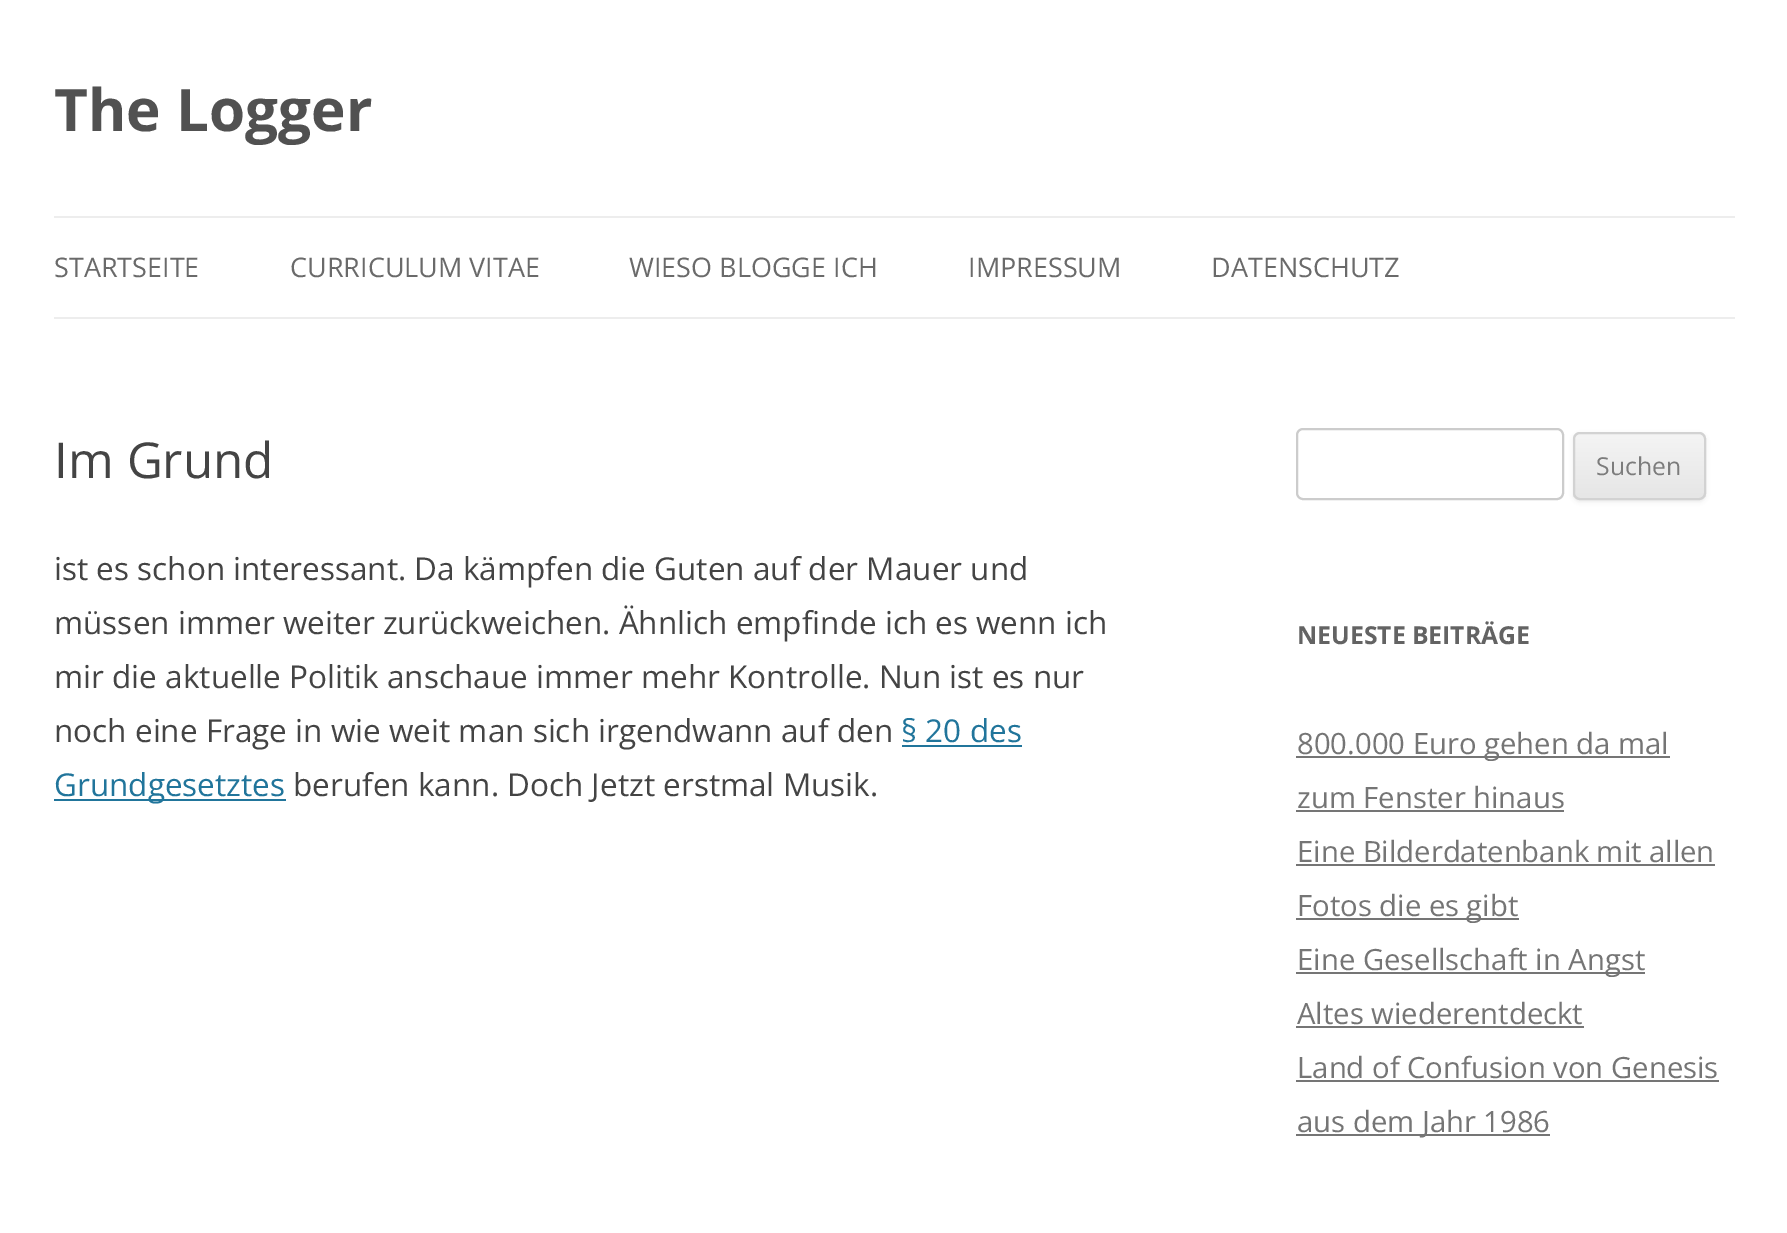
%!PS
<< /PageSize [1787 1233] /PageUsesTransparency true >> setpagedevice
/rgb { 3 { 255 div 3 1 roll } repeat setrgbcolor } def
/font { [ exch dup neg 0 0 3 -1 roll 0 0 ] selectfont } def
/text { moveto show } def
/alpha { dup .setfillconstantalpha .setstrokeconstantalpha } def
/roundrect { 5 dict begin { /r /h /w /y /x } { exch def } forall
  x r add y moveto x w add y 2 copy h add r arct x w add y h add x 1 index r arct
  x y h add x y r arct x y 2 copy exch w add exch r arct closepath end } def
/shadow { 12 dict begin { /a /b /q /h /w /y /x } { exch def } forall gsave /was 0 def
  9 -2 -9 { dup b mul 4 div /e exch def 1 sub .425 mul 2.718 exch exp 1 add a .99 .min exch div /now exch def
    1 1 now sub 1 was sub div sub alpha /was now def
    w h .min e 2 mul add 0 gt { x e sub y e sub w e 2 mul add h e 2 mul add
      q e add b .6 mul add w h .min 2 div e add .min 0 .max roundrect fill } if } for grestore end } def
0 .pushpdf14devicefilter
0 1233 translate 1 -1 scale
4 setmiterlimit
255 255 255 rgb
0 0 1787 1233 rectfill
237 237 237 rgb
54 216 1681 2 rectfill
54 317 1681 2 rectfill
33 117 155 rgb
902 745 120 2 rectfill
54 799 232 2 rectfill
204 204 204 rgb
2 setlinewidth
1297 429 266 70 6 roundrect stroke
64 64 64 rgb
1573 434 133 68 7 2 0.1 shadow
230 230 230 rgb
1573 432 133 68 7 roundrect fill
gsave
1573 432 133 68 7 roundrect clip newpath
gsave 1573 434 moveto 133 0 rlineto 0 63 rlineto -133 0 rlineto closepath clip newpath
<< /ShadingType 2 /ColorSpace /DeviceRGB /Coords [1639 434 1639 497] /Extend [true true] /Function << /FunctionType 2 /Domain [0 1] /C0 [0.957 0.957 0.957] /C1 [0.902 0.902 0.902] /N 1 >> >> shfill grestore
grestore
210 210 210 rgb
1574 433 131 66 6 roundrect stroke
117 117 117 rgb
1296 756 374 2 rectfill
1296 810 268 2 rectfill
1296 864 419 2 rectfill
1296 918 223 2 rectfill
1296 972 349 2 rectfill
1296 1026 288 2 rectfill
1296 1080 423 2 rectfill
1296 1134 254 2 rectfill
/OpenSans-Bold 58.5 font
81 81 81 rgb
(The Logger) 54 131 text
/OpenSans-Regular 27 font
106 106 106 rgb
(STARTSEITE) 54 277 text
(CURRICULUM VITAE) 290 277 text
(WIESO BLOGGE ICH) 629 277 text
(IMPRESSUM) 968 277 text
(DATENSCHUTZ) 1211 277 text
/OpenSans-Regular 49.5 font
68 68 68 rgb
(Im Grund) 54 478 text
/OpenSans-Regular 31.5 font
(ist es schon interessant. Da kämpfen die Guten auf der Mauer und) 54 580 text
(müssen immer weiter zurückweichen. Ähnlich empfinde ich es wenn ich) 54 634 text
(mir die aktuelle Politik anschaue immer mehr Kontrolle. Nun ist es nur) 54 688 text
(noch eine Frage in wie weit man sich irgendwann auf den) 54 742 text
33 117 155 rgb
(§ 20 des) 901 742 text
(Grundgesetztes) 54 796 text
68 68 68 rgb
(berufen kann. Doch Jetzt erstmal Musik.) 293 796 text
/OpenSans-Regular 24.75 font
124 124 124 rgb
(Suchen) 1596 475 text
/OpenSans-Bold 24.75 font
99 99 99 rgb
(NEUESTE BEITRÄGE) 1297 644 text
/OpenSans-Regular 29.25 font
117 117 117 rgb
(800.000 Euro gehen da mal) 1297 754 text
(zum Fenster hinaus) 1297 808 text
(Eine Bilderdatenbank mit allen) 1297 862 text
(Fotos die es gibt) 1297 916 text
(Eine Gesellschaft in Angst) 1297 970 text
(Altes wiederentdeckt) 1297 1024 text
(Land of Confusion von Genesis) 1297 1078 text
(aus dem Jahr 1986) 1297 1132 text
.poppdf14devicefilter showpage
